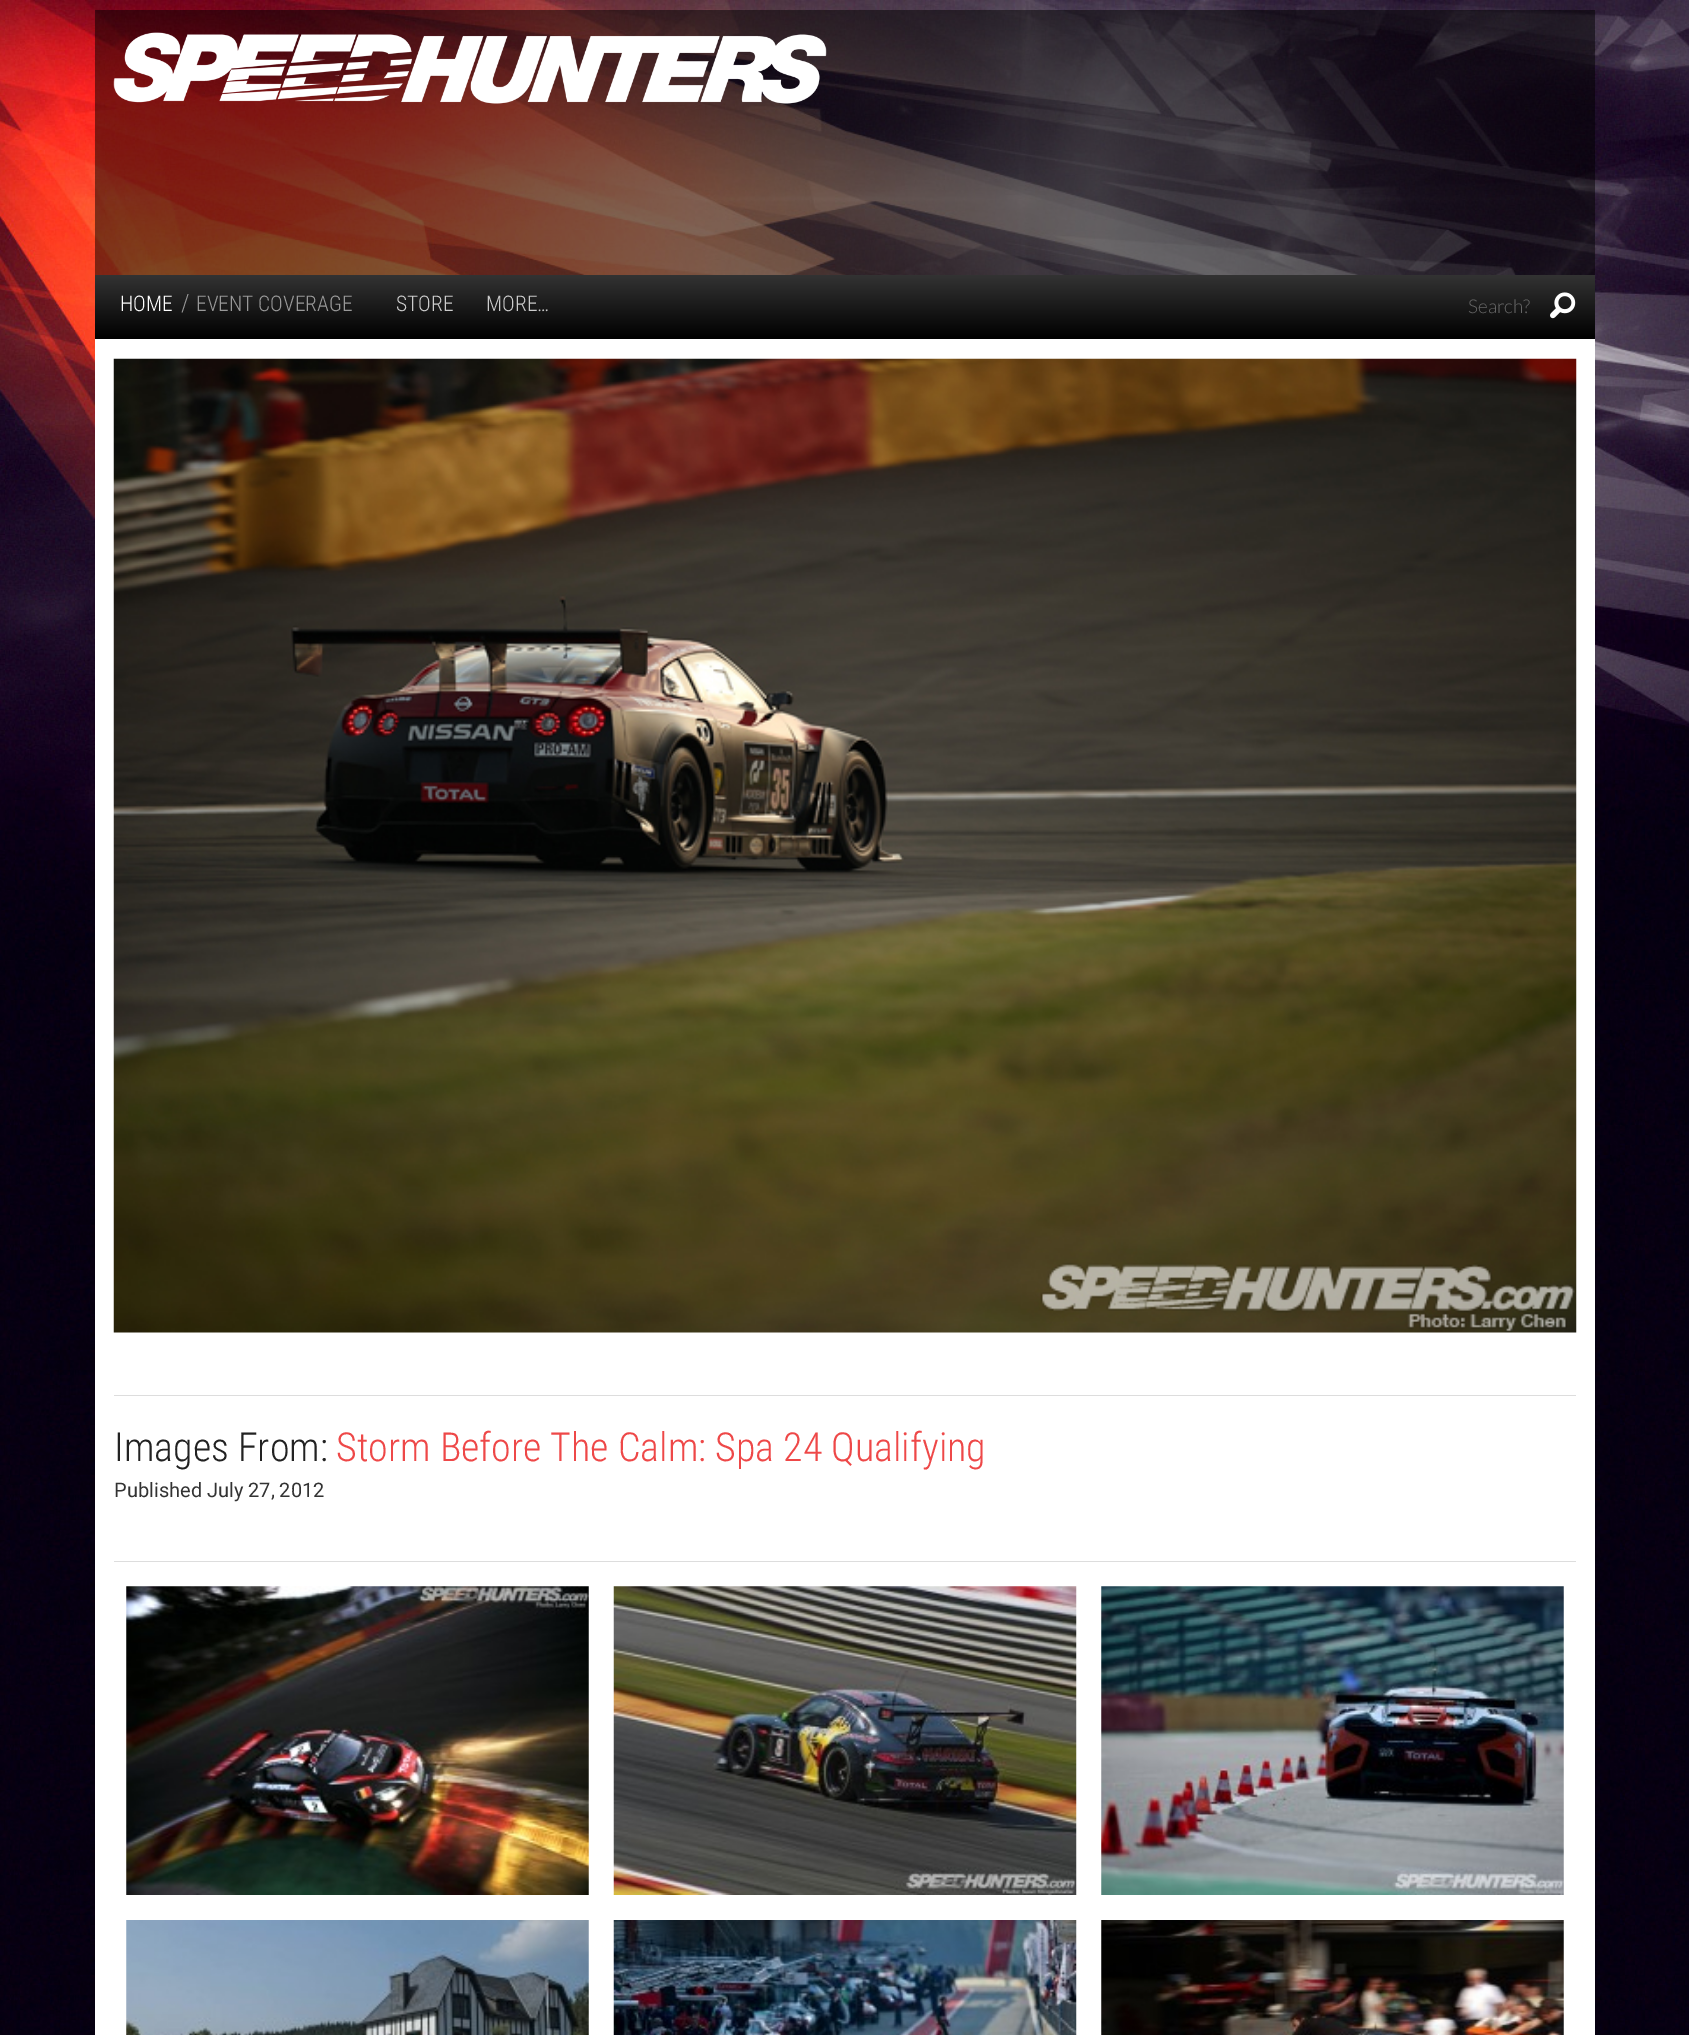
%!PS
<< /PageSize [1689 2035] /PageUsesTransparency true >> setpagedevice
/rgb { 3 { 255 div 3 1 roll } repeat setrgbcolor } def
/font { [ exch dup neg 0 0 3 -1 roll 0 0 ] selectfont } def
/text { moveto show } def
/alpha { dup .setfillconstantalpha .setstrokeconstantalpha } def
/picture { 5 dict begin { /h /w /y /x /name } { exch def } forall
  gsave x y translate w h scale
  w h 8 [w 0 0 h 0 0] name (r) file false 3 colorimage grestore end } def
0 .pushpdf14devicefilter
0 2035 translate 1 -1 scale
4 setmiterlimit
255 255 255 rgb
0 0 1689 2035 rectfill
(img_01.rgb) 0 0 1689 2035 picture
0.5 alpha
0 0 0 rgb
95 10 1500 265 rectfill
1 alpha
(img_02.rgb) 113 32 714 72 picture
gsave 95 275 moveto 1500 0 rlineto 0 64 rlineto -1500 0 rlineto closepath clip newpath
<< /ShadingType 2 /ColorSpace /DeviceRGB /Coords [845 275 845 339] /Extend [true true] /Function << /FunctionType 2 /Domain [0 1] /C0 [0.2 0.2 0.2] /C1 [0 0 0] /N 1 >> >> shfill grestore
(img_03.rgb) 1550 292 26 27 picture
255 255 255 rgb
95 339 1500 1696 rectfill
(img_04.rgb) 113 358 1464 975 picture
221 221 221 rgb
114 1395 1462 1 rectfill
114 1561 1462 1 rectfill
(img_05.rgb) 126 1586 463 309 picture
(img_06.rgb) 613 1586 464 309 picture
(img_07.rgb) 1101 1586 463 309 picture
(img_08.rgb) 126 1920 463 115 picture
(img_09.rgb) 613 1920 464 115 picture
(img_10.rgb) 1101 1920 463 115 picture
/RobotoCondensed-Light 21.5 font
255 255 255 rgb
(HOME) 120 311 text
/RobotoCondensed-Light 24 font
153 153 153 rgb
(/) 181 311 text
/RobotoCondensed-Light 21.5 font
(EVENT COVERAGE) 196 311 text
204 204 204 rgb
(STORE) 396 311 text
(MORE…) 486 311 text
/Lato-Light 19 font
102 102 102 rgb
(Search?) 1468 313 text
/RobotoCondensed-Light 40 font
34 34 34 rgb
(Images From:) 114 1461 text
238 72 72 rgb
(Storm Before The Calm: Spa 24 Qualifying) 336 1461 text
/Roboto-Regular 20 font
51 51 51 rgb
(Published July 27, 2012) 114 1497 text
.poppdf14devicefilter showpage
